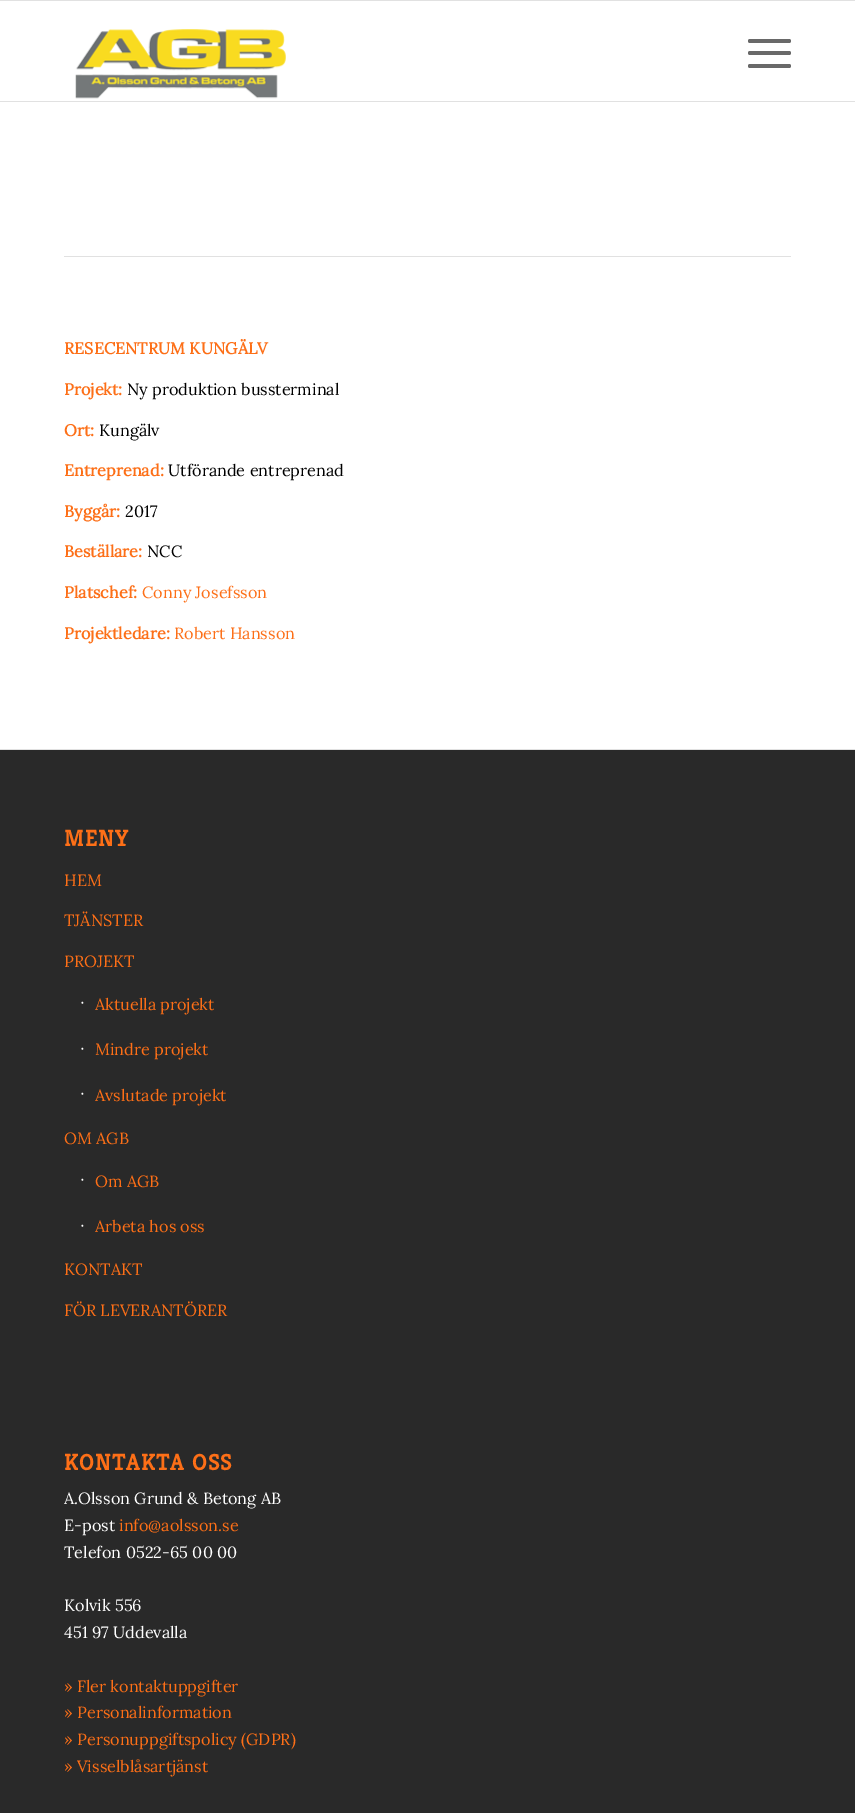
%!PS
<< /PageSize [855 1813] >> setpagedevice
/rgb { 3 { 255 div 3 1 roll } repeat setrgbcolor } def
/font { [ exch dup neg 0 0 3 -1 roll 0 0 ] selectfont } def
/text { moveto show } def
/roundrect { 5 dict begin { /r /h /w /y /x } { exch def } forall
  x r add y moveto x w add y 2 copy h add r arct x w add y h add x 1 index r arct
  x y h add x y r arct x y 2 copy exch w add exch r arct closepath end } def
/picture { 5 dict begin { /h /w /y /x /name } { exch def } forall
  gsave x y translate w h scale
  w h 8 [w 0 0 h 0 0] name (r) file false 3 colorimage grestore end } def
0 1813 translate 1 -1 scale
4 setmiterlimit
255 255 255 rgb
0 0 855 1813 rectfill
225 225 225 rgb
0 0 855 1 rectfill
0 101 855 1 rectfill
(img_01.rgb) 75 29 211 70 picture
105 105 105 rgb
748 51 43 4 2 roundrect fill
748 39 43 4 2 roundrect fill
748 64 43 4 2 roundrect fill
225 225 225 rgb
64 256 727 1 rectfill
41 41 41 rgb
0 750 855 1063 rectfill
225 225 225 rgb
0 749 855 1 rectfill
/Lora-Bold 16.25 font
253 111 23 rgb
(RESECENTRUM KUNGÄLV) 64 354 text
(Projekt:) 64 395 text
/Lora-Regular 16.25 font
0 0 0 rgb
(Ny produktion bussterminal) 127 395 text
/Lora-Bold 16.25 font
253 111 23 rgb
(Ort:) 64 436 text
/Lora-Regular 16.25 font
0 0 0 rgb
(Kungälv) 99 436 text
/Lora-Bold 16.25 font
253 111 23 rgb
(Entreprenad:) 64 476 text
/Lora-Regular 16.25 font
0 0 0 rgb
(Utförande entreprenad) 168 476 text
/Lora-Bold 16.25 font
253 111 23 rgb
(Byggår:) 64 517 text
/Lora-Regular 16.25 font
0 0 0 rgb
(2017) 125 517 text
/Lora-Bold 16.25 font
253 111 23 rgb
(Beställare:) 64 557 text
/Lora-Regular 16.25 font
0 0 0 rgb
(NCC) 147 557 text
/Lora-Bold 16.25 font
253 111 23 rgb
(Platschef:) 64 598 text
/Lora-Regular 16.25 font
(Conny Josefsson) 142 598 text
/Lora-Bold 16.25 font
(Projektledare:) 64 639 text
/Lora-Regular 16.25 font
(Robert Hansson) 174 639 text
/Kreon-Bold 22.5 font
64 846 moveto 1.25 0 (MENY) ashow
/Lora-Regular 16.25 font
(HEM) 64 886 text
(TJÄNSTER) 64 926 text
(PROJEKT) 64 967 text
255 255 255 rgb
(∙) 80 1008 text
253 111 23 rgb
(Aktuella projekt) 95 1010 text
255 255 255 rgb
(∙) 80 1054 text
253 111 23 rgb
(Mindre projekt) 95 1055 text
255 255 255 rgb
(∙) 80 1099 text
253 111 23 rgb
(Avslutade projekt) 95 1101 text
(OM AGB) 64 1144 text
255 255 255 rgb
(∙) 80 1185 text
253 111 23 rgb
(Om AGB) 95 1187 text
255 255 255 rgb
(∙) 80 1231 text
253 111 23 rgb
(Arbeta hos oss) 95 1232 text
(KONTAKT) 64 1275 text
(FÖR LEVERANTÖRER) 64 1316 text
/Kreon-Bold 22.5 font
64 1470 moveto 1.25 0 (KONTAKTA OSS) ashow
/Lora-Regular 16.25 font
255 255 255 rgb
(A.Olsson Grund & Betong AB) 64 1504 text
(E-post) 64 1531 text
253 111 23 rgb
(info@aolsson.se) 119 1531 text
255 255 255 rgb
(Telefon 0522-65 00 00) 64 1558 text
(Kolvik 556) 64 1611 text
(451 97 Uddevalla) 64 1638 text
253 111 23 rgb
(» Fler kontaktuppgifter) 64 1692 text
(» Personalinformation) 64 1718 text
(» Personuppgiftspolicy \(GDPR\)) 64 1745 text
(» Visselblåsartjänst) 64 1772 text
showpage
